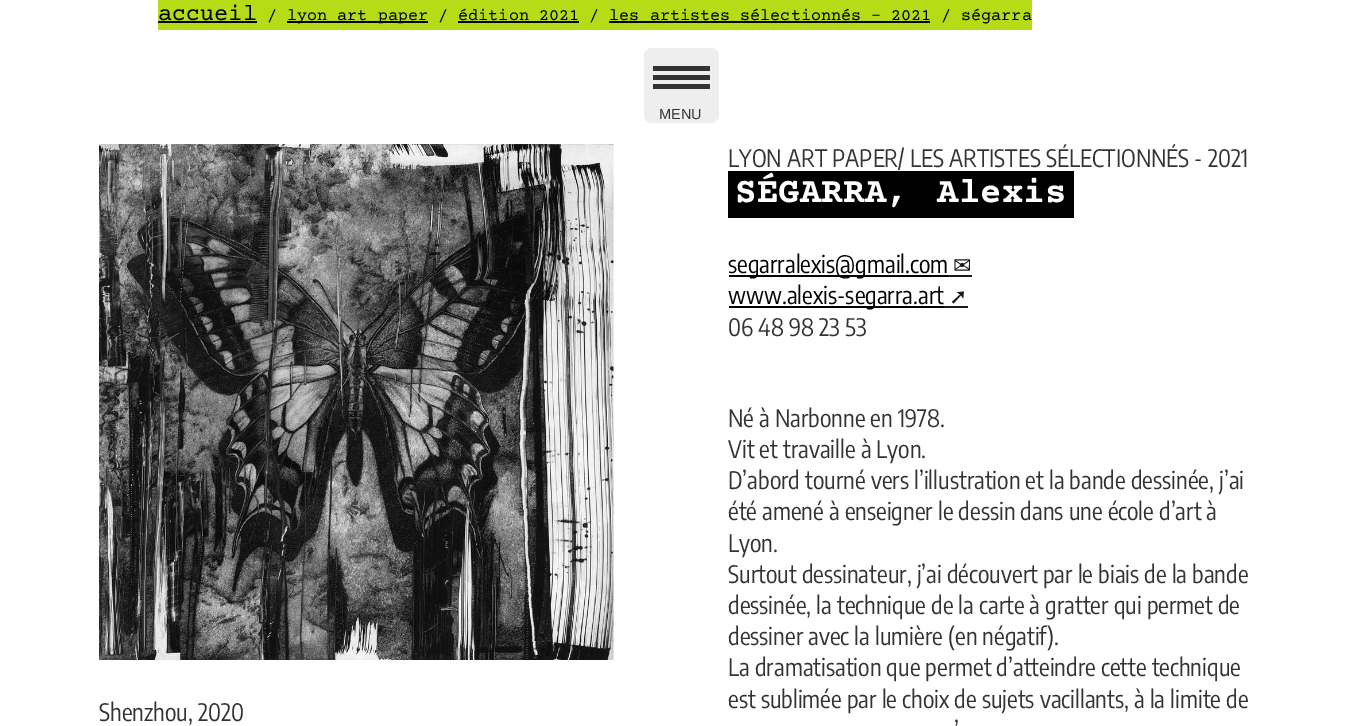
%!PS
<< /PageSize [1360 726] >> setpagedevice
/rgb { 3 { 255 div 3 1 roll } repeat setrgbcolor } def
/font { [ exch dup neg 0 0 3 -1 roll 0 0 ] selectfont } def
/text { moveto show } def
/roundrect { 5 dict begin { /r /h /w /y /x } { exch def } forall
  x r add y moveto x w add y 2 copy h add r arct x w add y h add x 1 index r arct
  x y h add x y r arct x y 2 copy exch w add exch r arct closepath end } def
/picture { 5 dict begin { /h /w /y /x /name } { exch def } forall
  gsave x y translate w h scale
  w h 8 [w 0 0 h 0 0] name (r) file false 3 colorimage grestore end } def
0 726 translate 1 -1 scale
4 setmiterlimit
255 255 255 rgb
0 0 1360 726 rectfill
181 220 23 rgb
158 0 874 30 rectfill
0 0 0 rgb
158 21 99 2 rectfill
287 21 141 2 rectfill
458 21 121 2 rectfill
609 21 321 2 rectfill
728 171 346 47 rectfill
729 275 219 2 rectfill
26 26 26 rgb
948 275 24 2 rectfill
0 0 0 rgb
729 306 215 2 rectfill
26 26 26 rgb
944 306 24 2 rectfill
(img_01.rgb) 99 144 515 516 picture
238 238 238 rgb
644 48 75 75 8 roundrect fill
51 51 51 rgb
653 75 57 5 rectfill
653 66 57 5 rectfill
653 84 57 5 rectfill
/CourierPrime-Regular 23.5 font
0 0 0 rgb
(accueil) 158 20 text
/CourierPrime-Regular 16.8 font
(/) 267 20 text
(lyon art paper / édition 2021 / les artistes sélectionnés - 2021) 287 20 text
(/ ségarra) 941 20 text
/EncodeSansCondensed-Regular 24 font
51 51 51 rgb
(LYON ART PAPER/ LES ARTISTES SÉLECTIONNÉS - 2021) 728 167 text
/CourierPrime-Bold 36 font
255 255 255 rgb
(SÉGARRA,) 735 202 text
(Alexis) 937 202 text
/EncodeSansCondensed-Regular 24 font
0 0 0 rgb
(segarralexis@gmail.com) 728 273 text
/DejaVuSans-Regular 22 font
26 26 26 rgb
(✉) 953 273 text
/EncodeSansCondensed-Regular 24 font
0 0 0 rgb
(www.alexis-segarra.art) 728 304 text
/DejaVuSans-Regular 22 font
26 26 26 rgb
(➚) 949 304 text
/EncodeSansCondensed-Regular 24 font
51 51 51 rgb
(06 48 98 23 53) 728 336 text
(Né à Narbonne en 1978.) 728 427 text
(Vit et travaille à Lyon.) 728 458 text
(D’abord tourné vers l’illustration et la bande dessinée, j’ai) 728 489 text
(été amené à enseigner le dessin dans une école d’art à) 728 520 text
(Lyon.) 728 552 text
(Surtout dessinateur, j’ai découvert par le biais de la bande) 728 583 text
(dessinée, la technique de la carte à gratter qui permet de) 728 614 text
(dessiner avec la lumière \(en négatif\).) 728 645 text
(La dramatisation que permet d’atteindre cette technique) 728 676 text
(est sublimée par le choix de sujets vacillants, à la limite de) 728 708 text
(’) 954 739 text
(Shenzhou, 2020) 99 721 text
/LiberationSans-Regular 14.5 font
(MENU) 659 119 text
showpage
